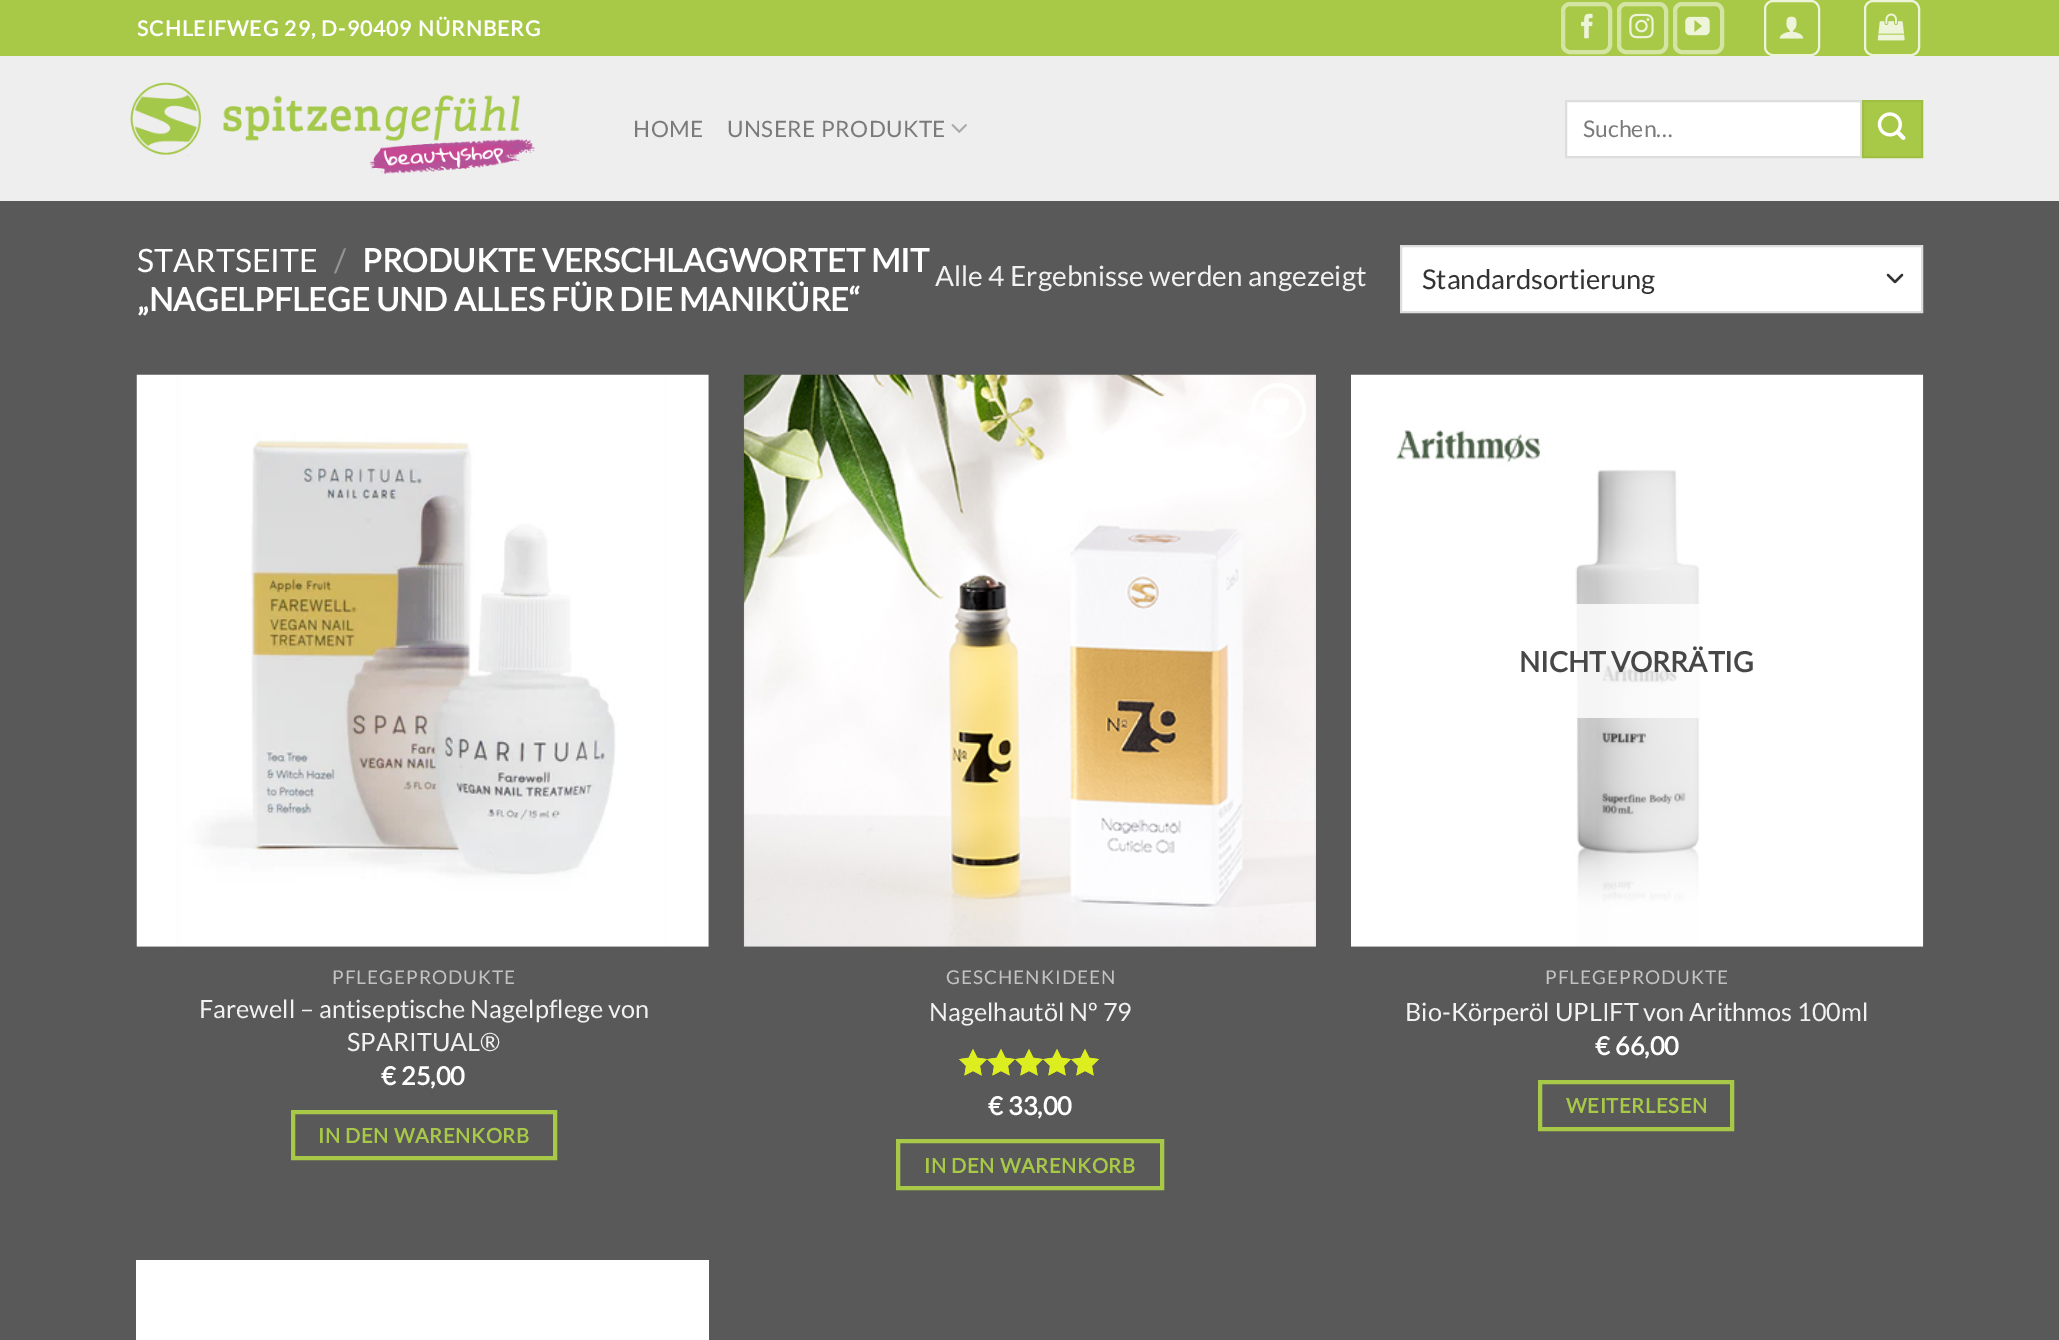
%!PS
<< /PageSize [2059 1340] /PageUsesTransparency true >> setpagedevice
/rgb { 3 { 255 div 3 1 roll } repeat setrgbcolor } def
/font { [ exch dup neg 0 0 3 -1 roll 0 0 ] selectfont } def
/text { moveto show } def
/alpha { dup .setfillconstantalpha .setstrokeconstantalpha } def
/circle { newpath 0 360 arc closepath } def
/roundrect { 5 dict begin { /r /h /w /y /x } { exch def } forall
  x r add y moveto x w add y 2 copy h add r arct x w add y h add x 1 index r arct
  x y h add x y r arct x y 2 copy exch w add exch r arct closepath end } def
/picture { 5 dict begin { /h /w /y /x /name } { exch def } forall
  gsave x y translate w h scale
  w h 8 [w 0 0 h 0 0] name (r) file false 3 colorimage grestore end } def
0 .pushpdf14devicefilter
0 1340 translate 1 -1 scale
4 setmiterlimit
89 89 89 rgb
0 0 2059 1340 rectfill
167 201 71 rgb
0 0 2059 56 rectfill
211 228 163 rgb
4 setlinewidth
1563 4 47 48 7 roundrect stroke
(img_01.rgb) 1581 13 12 26 picture
1619 4 47 48 7 roundrect stroke
(img_02.rgb) 1629 13 25 26 picture
1675 4 47 48 7 roundrect stroke
(img_03.rgb) 1685 16 25 20 picture
237 244 218 rgb
2 setlinewidth
1765 1 54 54 8 roundrect stroke
(img_04.rgb) 1779 16 25 23 picture
1865 1 54 54 8 roundrect stroke
(img_05.rgb) 1877 13 28 28 picture
238 238 238 rgb
0 56 2059 145 rectfill
(img_06.rgb) 130 82 407 93 picture
(img_07.rgb) 951 124 16 9 picture
255 255 255 rgb
1566 101 moveto 295 0 rlineto 0 56 rlineto -295 0 rlineto closepath gsave fill grestore
221 221 221 rgb
stroke
167 201 71 rgb
1863 101 moveto 59 0 rlineto 0 56 rlineto -59 0 rlineto closepath gsave fill grestore
159 191 67 rgb
stroke
(img_08.rgb) 1877 112 29 28 picture
255 255 255 rgb
1402 247 519 64 rectfill
51 51 51 rgb
2.3 setlinewidth
1 setlinecap
1 setlinejoin
1888 275 moveto 7 7 rlineto 7 -7 rlineto stroke
221 221 221 rgb
2 setlinewidth
0 setlinecap
0 setlinejoin
1401 246 521 66 rectstroke
(img_09.rgb) 136 374 573 573 picture
167 201 71 rgb
4 setlinewidth
293 1112 262 46 rectstroke
(img_10.rgb) 743 374 573 573 picture
255 255 255 rgb
1278.5 410.5 25.5 circle stroke
(img_11.rgb) 1264 398 25 16 picture
(img_12.rgb) 959 1049 140 27 picture
(img_13.rgb) 959 1049 140 27 picture
167 201 71 rgb
898 1141 264 47 rectstroke
(img_14.rgb) 1351 374 573 573 picture
0.81 alpha
255 255 255 rgb
1575 604 125 114 rectfill
1 alpha
167 201 71 rgb
1540 1082 192 47 rectstroke
255 255 255 rgb
136 1260 573 80 rectfill
/Lato-Bold 21 font
137 36 moveto 1.05 0 (SCHLEIFWEG 29, D-90409 NÜRNBERG) ashow
/Lato-Regular 22.5 font
122 122 122 rgb
633 137 moveto 0.5 0 (HOME) ashow
727 137 moveto 0.5 0 (UNSERE PRODUKTE) ashow
/Lato-Regular 23 font
(Suchen…) 1583 137 text
/Lato-Regular 32.2 font
255 255 255 rgb
(STARTSEITE) 137 272 text
147 147 147 rgb
(/) 334 272 text
/Lato-Bold 32.2 font
255 255 255 rgb
(PRODUKTE VERSCHLAGWORTET MIT) 362 272 text
(„NAGELPFLEGE UND ALLES FÜR DIE MANIKÜRE“) 137 311 text
/Lato-Regular 28 font
241 241 241 rgb
(Alle 4 Ergebnisse werden angezeigt) 935 286 text
/Lato-Regular 27.25 font
51 51 51 rgb
(Standardsortierung) 1422 289 text
/Lato-Regular 19 font
195 195 195 rgb
332 984 moveto 1 0 (PFLEGEPRODUKTE) ashow
/Lato-Regular 25.25 font
241 241 241 rgb
(Farewell – antiseptische Nagelpflege von) 199 1018 text
(SPARITUAL®) 347 1051 text
/Lato-Bold 25.25 font
255 255 255 rgb
(€) 381 1085 text
(25,00) 401 1085 text
/Lato-Bold 20.25 font
167 201 71 rgb
318 1143 moveto 0.6 0 (IN DEN WARENKORB) ashow
/Lato-Regular 19 font
195 195 195 rgb
946 984 moveto 1 0 (GESCHENKIDEEN) ashow
/Lato-Regular 25.25 font
241 241 241 rgb
(Nagelhautöl Nº 79) 929 1021 text
/Lato-Bold 25.25 font
255 255 255 rgb
(€) 988 1115 text
(33,00) 1008 1115 text
/Lato-Bold 20.25 font
167 201 71 rgb
924 1173 moveto 0.6 0 (IN DEN WARENKORB) ashow
/Lato-Bold 28 font
71 71 71 rgb
(NICHT VORRÄTIG) 1519 672 text
/Lato-Regular 19 font
195 195 195 rgb
1545 984 moveto 1 0 (PFLEGEPRODUKTE) ashow
/Lato-Regular 25.25 font
241 241 241 rgb
(Bio-Körperöl UPLIFT von Arithmos 100ml) 1405 1021 text
/Lato-Bold 25.25 font
255 255 255 rgb
(€) 1595 1055 text
(66,00) 1615 1055 text
/Lato-Bold 20.25 font
167 201 71 rgb
1566 1113 moveto 0.6 0 (WEITERLESEN) ashow
.poppdf14devicefilter showpage
